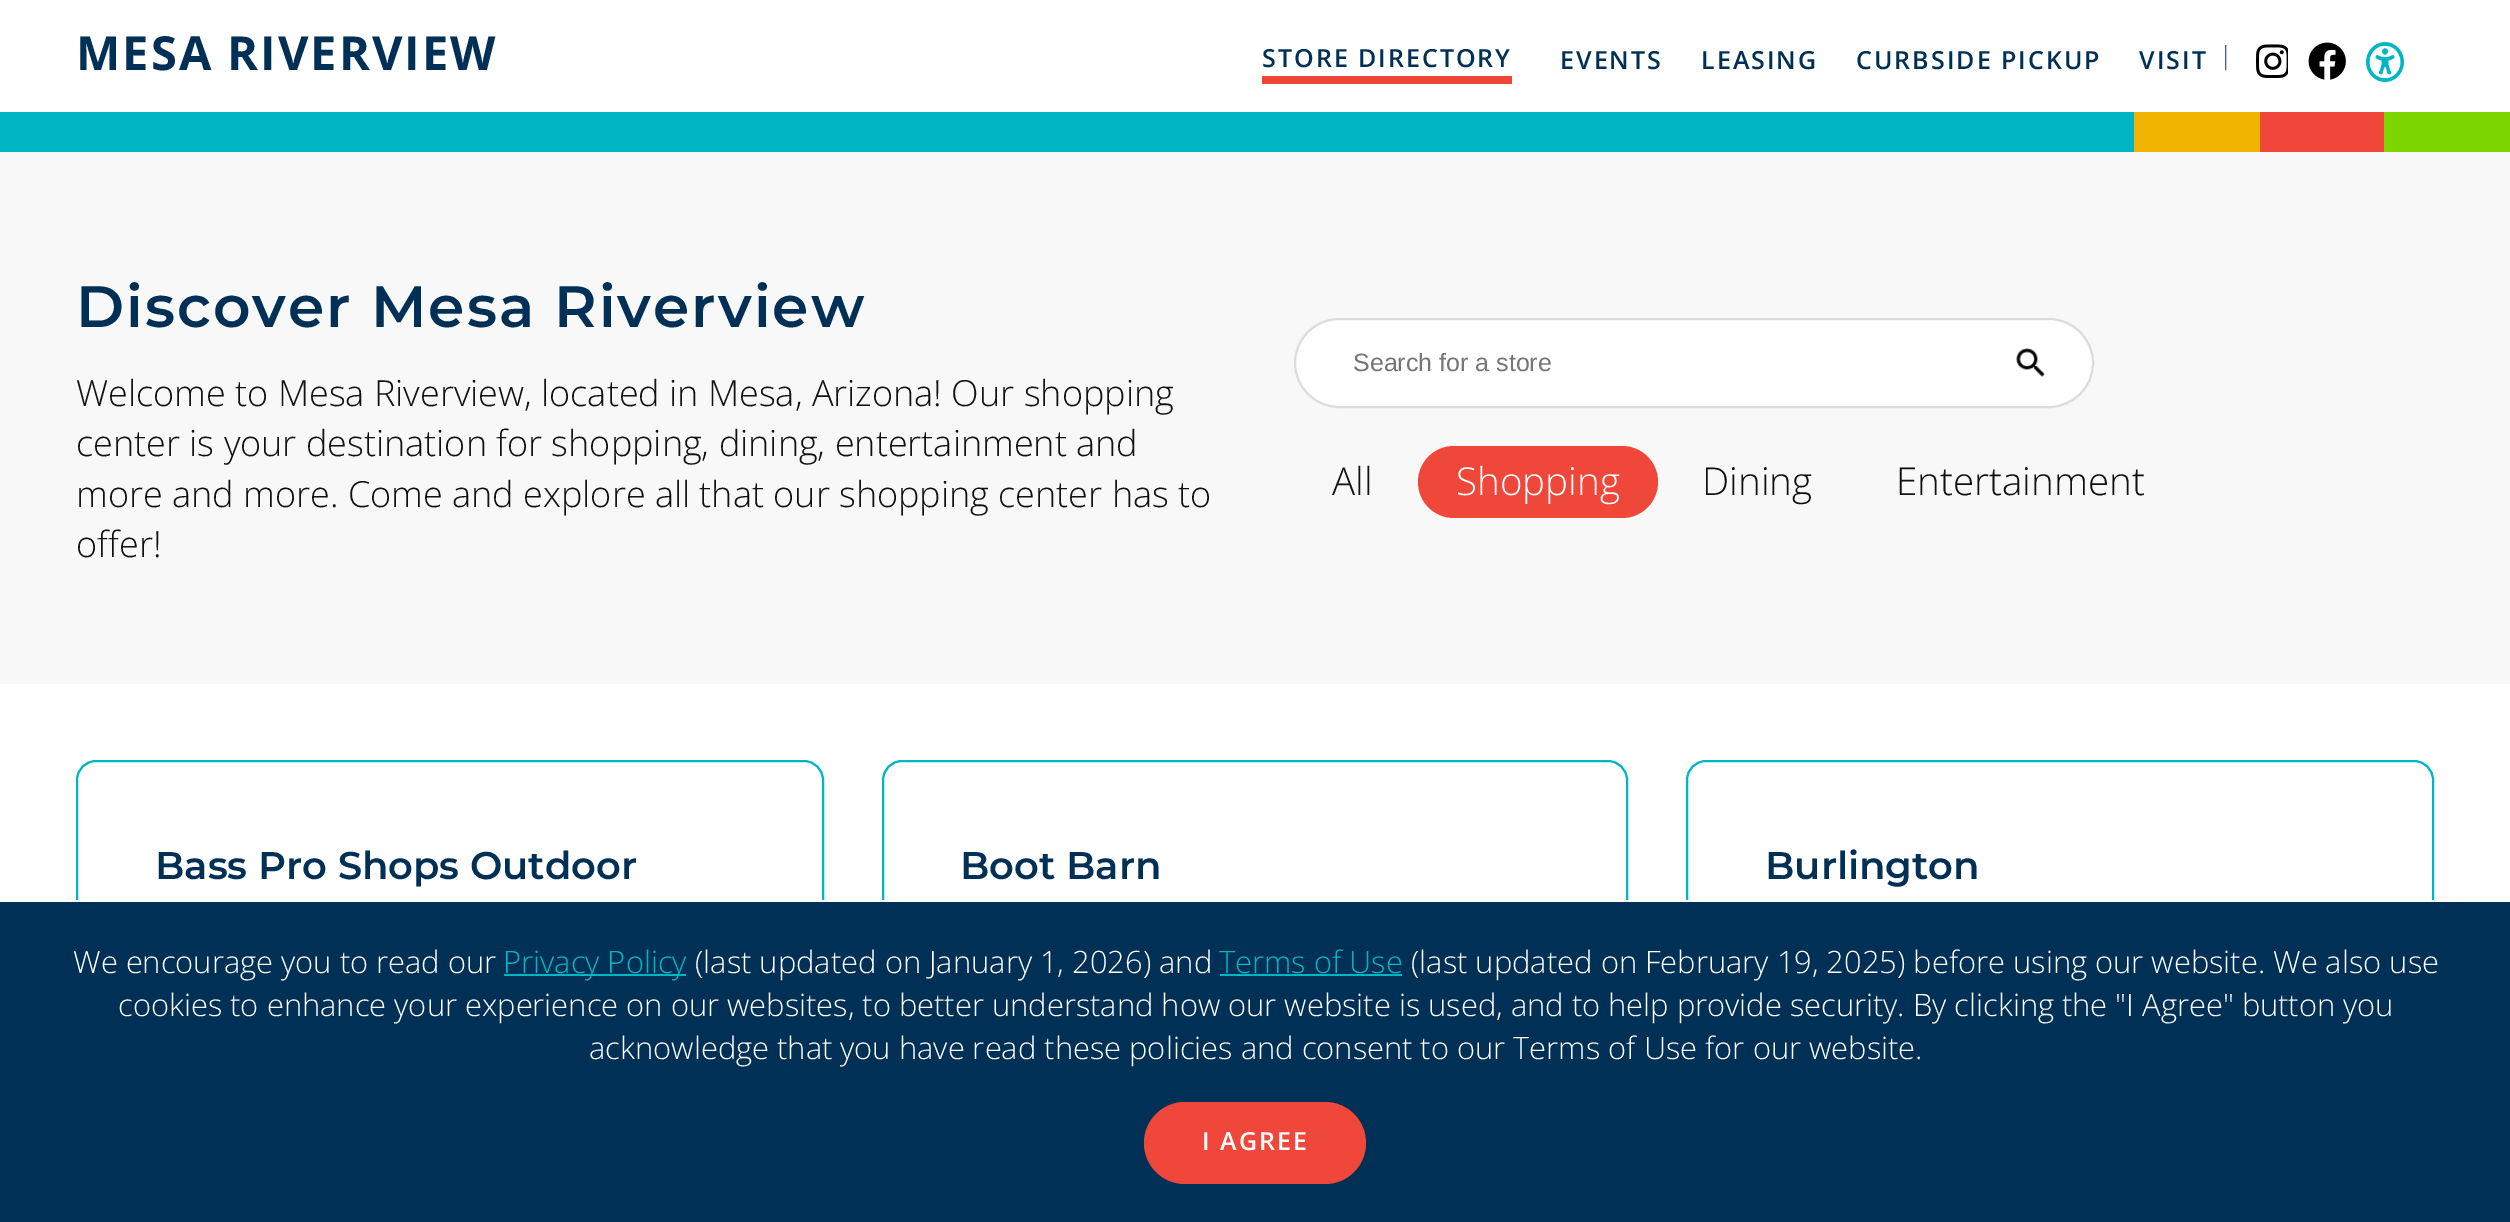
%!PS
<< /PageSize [2510 1222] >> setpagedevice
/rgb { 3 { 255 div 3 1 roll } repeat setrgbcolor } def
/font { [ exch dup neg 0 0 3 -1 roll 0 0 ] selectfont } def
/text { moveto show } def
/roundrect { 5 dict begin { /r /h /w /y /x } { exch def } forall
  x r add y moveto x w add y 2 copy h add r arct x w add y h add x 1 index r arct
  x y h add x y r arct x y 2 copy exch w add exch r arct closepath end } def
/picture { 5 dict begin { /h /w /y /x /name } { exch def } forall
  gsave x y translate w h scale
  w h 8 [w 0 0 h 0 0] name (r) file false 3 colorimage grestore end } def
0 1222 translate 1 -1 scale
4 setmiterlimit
255 255 255 rgb
0 0 2510 1222 rectfill
239 71 58 rgb
1262 76 250 8 rectfill
(img_01.rgb) 2256 44 32 35 picture
(img_02.rgb) 2308 42 38 38 picture
(img_03.rgb) 2366 42 38 40 picture
126 214 0 rgb
2384 112 126 40 rectfill
239 71 58 rgb
2260 112 124 40 rectfill
240 179 0 rgb
2134 112 126 40 rectfill
0 182 196 rgb
0 112 2134 40 rectfill
248 248 248 rgb
0 152 2510 532 rectfill
255 255 255 rgb
1294 318 800 90 45 roundrect fill
(img_04.rgb) 2016 348 29 29 picture
220 220 220 rgb
2 setlinewidth
1295 319 798 88 44 roundrect stroke
239 71 58 rgb
1418 446 240 72 36 roundrect fill
0 182 196 rgb
96 761 moveto 708 0 rlineto 10.5 0 19 8.5 19 19 rcurveto 0 373 rlineto -746 0 rlineto 0 -373 rlineto 0 -10.5 8.5 -19 19 -19 rcurveto closepath stroke
902 761 moveto 706 0 rlineto 10.5 0 19 8.5 19 19 rcurveto 0 373 rlineto -744 0 rlineto 0 -373 rlineto 0 -10.5 8.5 -19 19 -19 rcurveto closepath stroke
1706 761 moveto 708 0 rlineto 10.5 0 19 8.5 19 19 rcurveto 0 373 rlineto -746 0 rlineto 0 -373 rlineto 0 -10.5 8.5 -19 19 -19 rcurveto closepath stroke
0 48 85 rgb
0 902 2510 320 rectfill
255 255 255 rgb
76 900 2358 2 rectfill
0 182 196 rgb
504 974 182 2 rectfill
1220 974 182 2 rectfill
239 71 58 rgb
1144 1102 222 82 41 roundrect fill
/OpenSans-Bold 47 font
0 48 85 rgb
76 70 moveto 2 0 (MESA RIVERVIEW) ashow
/OpenSans-SemiBold 25 font
1262 67 moveto 2 0 (STORE DIRECTORY) ashow
1560 69 moveto 2 0 (EVENTS) ashow
1701 69 moveto 2 0 (LEASING) ashow
1856 69 moveto 2 0 (CURBSIDE PICKUP) ashow
2139 69 moveto 2 0 (VISIT) ashow
/OpenSans-Light 25 font
(|) 2219 64 text
/Montserrat-SemiBold 58.25 font
76 327 moveto 2 0 (Discover Mesa Riverview) ashow
/OpenSans-Light 36 font
17 17 17 rgb
(Welcome to Mesa Riverview, located in Mesa, Arizona! Our shopping) 76 406 text
(center is your destination for shopping, dining, entertainment and) 76 456 text
(more and more. Come and explore all that our shopping center has to) 76 507 text
(offer!) 76 557 text
/LiberationSans-Regular 25 font
117 117 117 rgb
(Search for a store) 1353 371 text
/OpenSans-Light 38.5 font
17 17 17 rgb
(All) 1332 495 text
255 255 255 rgb
(Shopping) 1456 495 text
17 17 17 rgb
(Dining) 1702 495 text
(Entertainment) 1896 495 text
/Montserrat-SemiBold 38.5 font
0 48 85 rgb
(Bass Pro Shops Outdoor) 155 879 text
(Boot Barn) 960 879 text
(Burlington) 1765 879 text
/OpenSans-Light 30.88 font
255 255 255 rgb
(We encourage you to read our) 73 973 text
0 182 196 rgb
(Privacy Policy) 503 973 text
255 255 255 rgb
(\(last updated on January 1, 2026\) and) 695 973 text
0 182 196 rgb
(Terms of Use) 1219 973 text
255 255 255 rgb
(\(last updated on February 19, 2025\) before using our website. We also use) 1411 973 text
(cookies to enhance your experience on our websites, to better understand how our website is used, and to help provide security. By clicking the "I Agree" button you) 118 1016 text
(acknowledge that you have read these policies and consent to our Terms of Use for our website.) 589 1059 text
/OpenSans-SemiBold 25 font
1202 1150 moveto 2 0 (I AGREE) ashow
showpage
